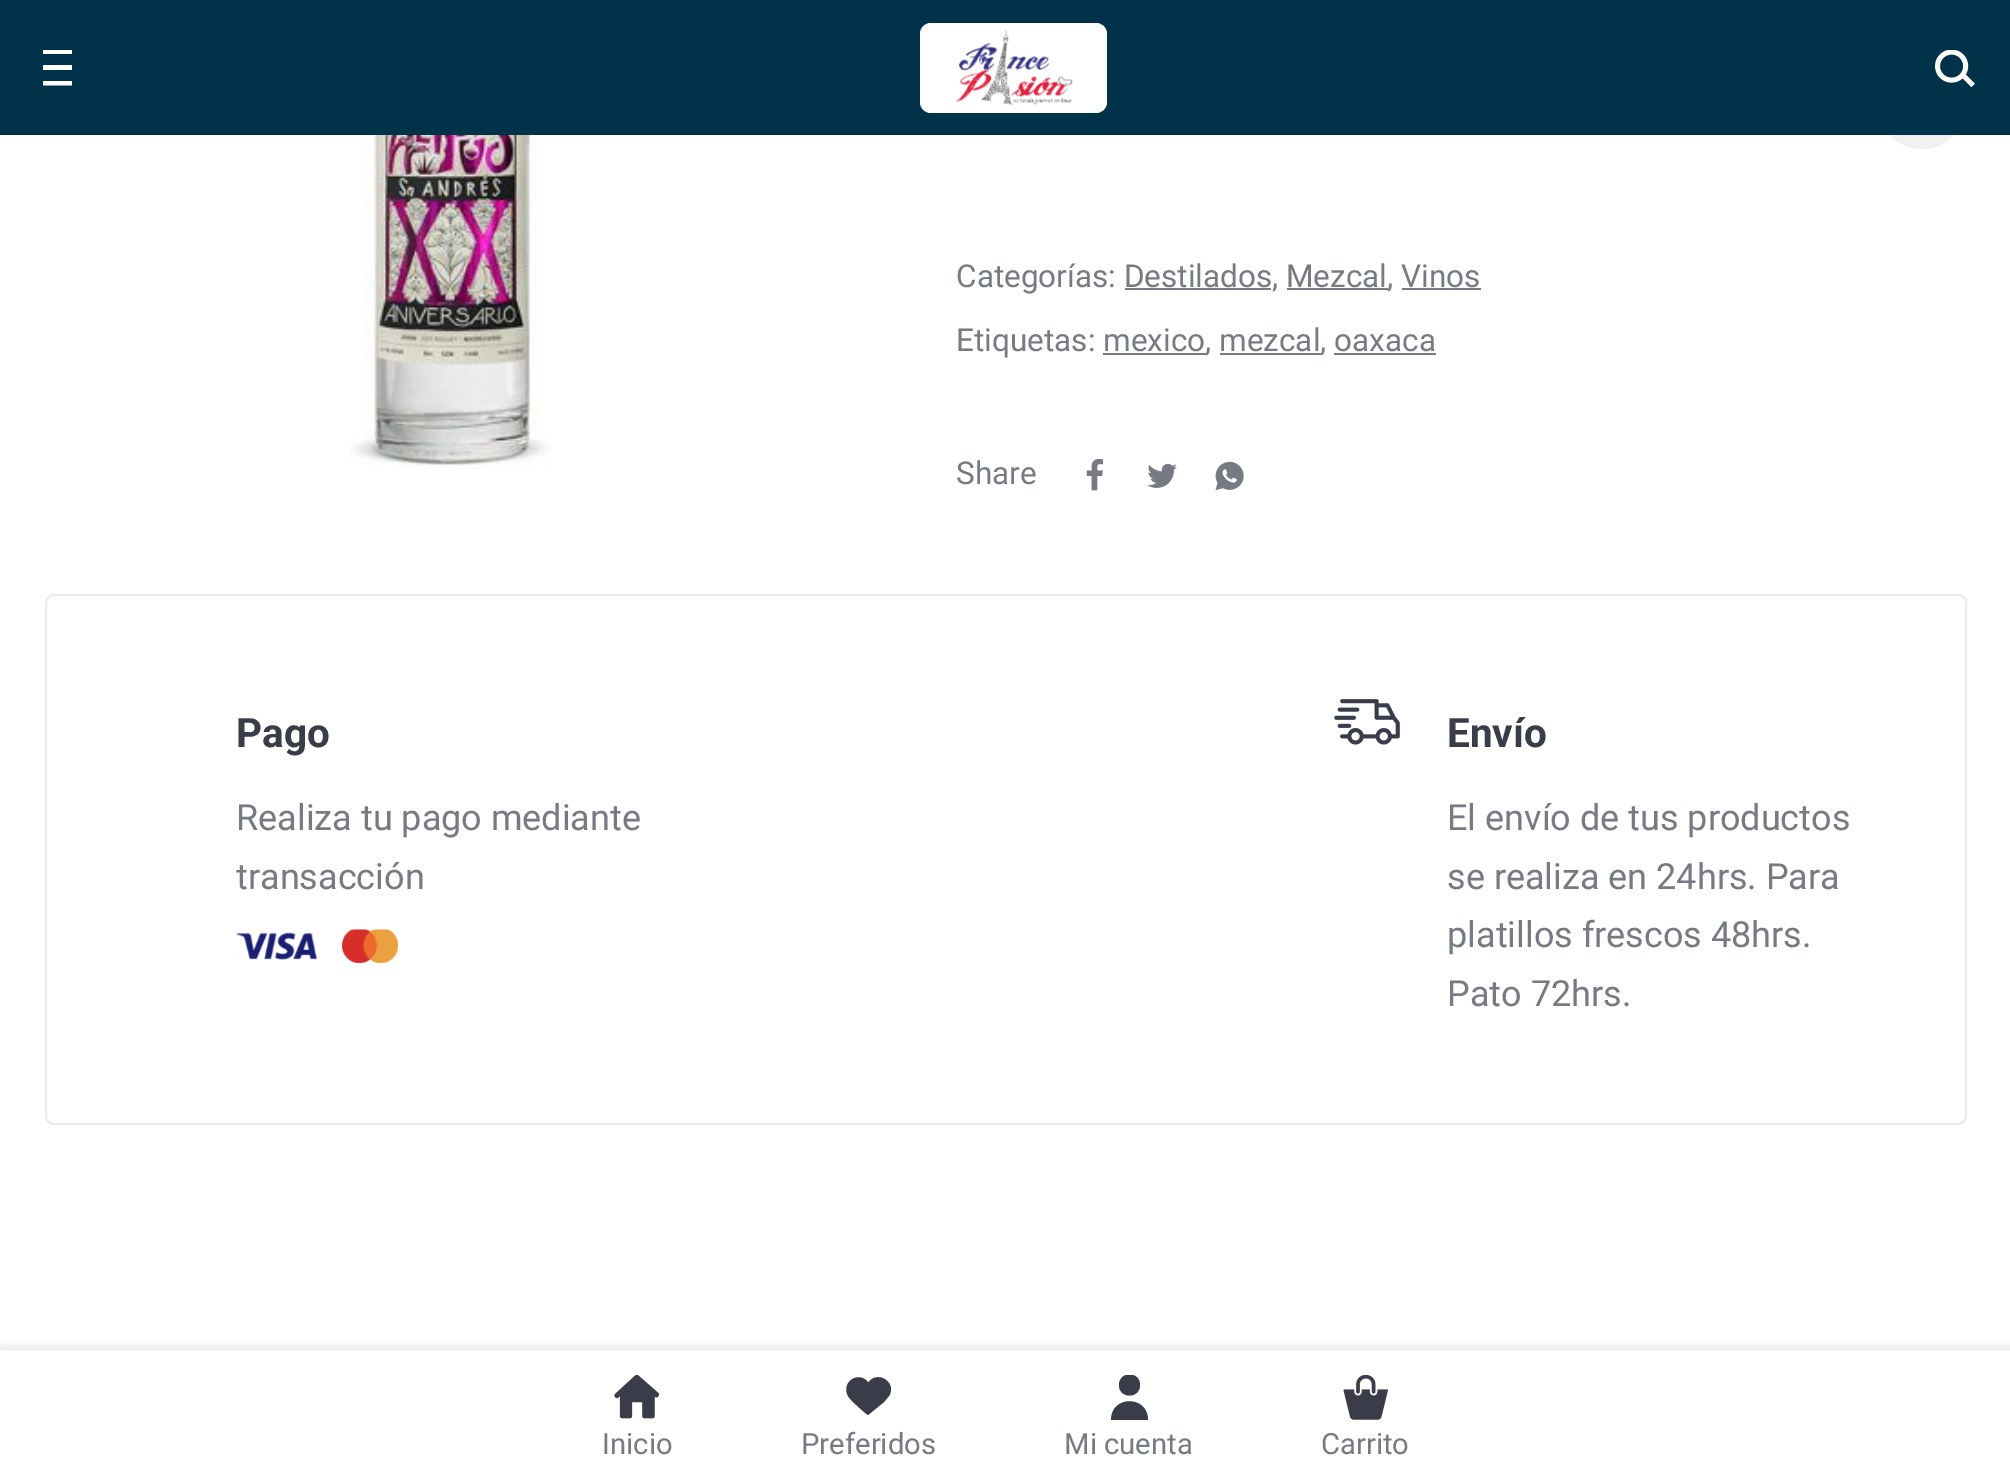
%!PS
<< /PageSize [2010 1483] /PageUsesTransparency true >> setpagedevice
/rgb { 3 { 255 div 3 1 roll } repeat setrgbcolor } def
/font { [ exch dup neg 0 0 3 -1 roll 0 0 ] selectfont } def
/text { moveto show } def
/alpha { dup .setfillconstantalpha .setstrokeconstantalpha } def
/circle { newpath 0 360 arc closepath } def
/roundrect { 5 dict begin { /r /h /w /y /x } { exch def } forall
  x r add y moveto x w add y 2 copy h add r arct x w add y h add x 1 index r arct
  x y h add x y r arct x y 2 copy exch w add exch r arct closepath end } def
/shadow { 12 dict begin { /a /b /q /h /w /y /x } { exch def } forall gsave /was 0 def
  9 -2 -9 { dup b mul 4 div /e exch def 1 sub .425 mul 2.718 exch exp 1 add a .99 .min exch div /now exch def
    1 1 now sub 1 was sub div sub alpha /was now def
    w h .min e 2 mul add 0 gt { x e sub y e sub w e 2 mul add h e 2 mul add
      q e add b .6 mul add w h .min 2 div e add .min 0 .max roundrect fill } if } for grestore end } def
/picture { 5 dict begin { /h /w /y /x /name } { exch def } forall
  gsave x y translate w h scale
  w h 8 [w 0 0 h 0 0] name (r) file false 3 colorimage grestore end } def
0 .pushpdf14devicefilter
0 1483 translate 1 -1 scale
4 setmiterlimit
255 255 255 rgb
0 0 2010 1483 rectfill
(img_01.rgb) 350 135 202 334 picture
241 241 242 rgb
1922 104 45 circle fill
119 122 131 rgb
1125 288 146 2 rectfill
1287 288 101 2 rectfill
1402 288 79 2 rectfill
1103 353 103 2 rectfill
1220 353 101 2 rectfill
1334 353 102 2 rectfill
(img_02.rgb) 1086 459 18 32 picture
(img_03.rgb) 1147 463 30 25 picture
(img_04.rgb) 1215 461 29 30 picture
235 235 236 rgb
2 setlinewidth
46 595 1920 529 8 roundrect stroke
(img_05.rgb) 236 929 162 34 picture
(img_06.rgb) 1334 699 66 46 picture
0 50 74 rgb
0 0 2010 135 rectfill
gsave
43 50 29 36 rectclip
255 255 255 rgb
43 49.5 moveto 29 0 rlineto 0 4.5 rlineto -29 0 rlineto closepath 43 65 moveto 29 0 rlineto 0 5 rlineto -29 0 rlineto closepath 72 81 moveto -29 0 rlineto 0 4.5 rlineto 29 0 rlineto closepath eofill
grestore
255 255 255 rgb
920 23 187 90 11 roundrect fill
(img_07.rgb) 955 30 118 75 picture
(img_08.rgb) 1935 50 40 38 picture
0 0 0 rgb
0 1346 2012 135 0 3.5 0.08 shadow
255 255 255 rgb
0 1350 2010 133 rectfill
(img_09.rgb) 614 1375 45 44 picture
58 61 73 rgb
867 1396 moveto -2 -3 -1 -8 0 -11 rcurveto 8 -17 31 -3 22 11 rcurveto -5 6 rlineto -16 13 rlineto -2 -1 -18 -15 -20 -19 rcurveto -7 -13 9 -25 19 -15 rcurveto 2 2 4 5 4 8 rcurveto 1 4 0 8 -3 11 rcurveto fill
gsave
1107 1375 45 45 rectclip
1140 1385 moveto 0 14 -21 14 -21 0 rcurveto 0 -14 21 -14 21 0 rcurveto closepath 1111 1420 moveto 0 -25 37 -25 37 0 rcurveto closepath eofill
grestore
(img_10.rgb) 1343 1375 45 45 picture
/Roboto-Regular 31.5 font
119 122 131 rgb
(Categorías: Destilados, Mezcal) 956 287 text
(, Vinos) 1387 287 text
(Etiquetas: mexico) 956 351 text
(, mezcal, oaxaca) 1205 351 text
(Share) 956 484 text
/Roboto-Bold 40.5 font
58 61 73 rgb
(Pago) 236 747 text
/Roboto-Regular 36 font
119 122 131 rgb
(Realiza tu pago mediante) 236 830 text
(transacción) 236 889 text
/Roboto-Bold 40.5 font
58 61 73 rgb
(Envío) 1447 747 text
/Roboto-Regular 36 font
119 122 131 rgb
(El envío de tus productos) 1447 830 text
(se realiza en 24hrs. Para) 1447 889 text
(platillos frescos 48hrs.) 1447 947 text
(Pato 72hrs.) 1447 1006 text
/Roboto-Regular 29.25 font
(Inicio) 602 1454 text
(Preferidos) 801 1454 text
(Mi cuenta) 1064 1454 text
(Carrito) 1321 1454 text
.poppdf14devicefilter showpage
